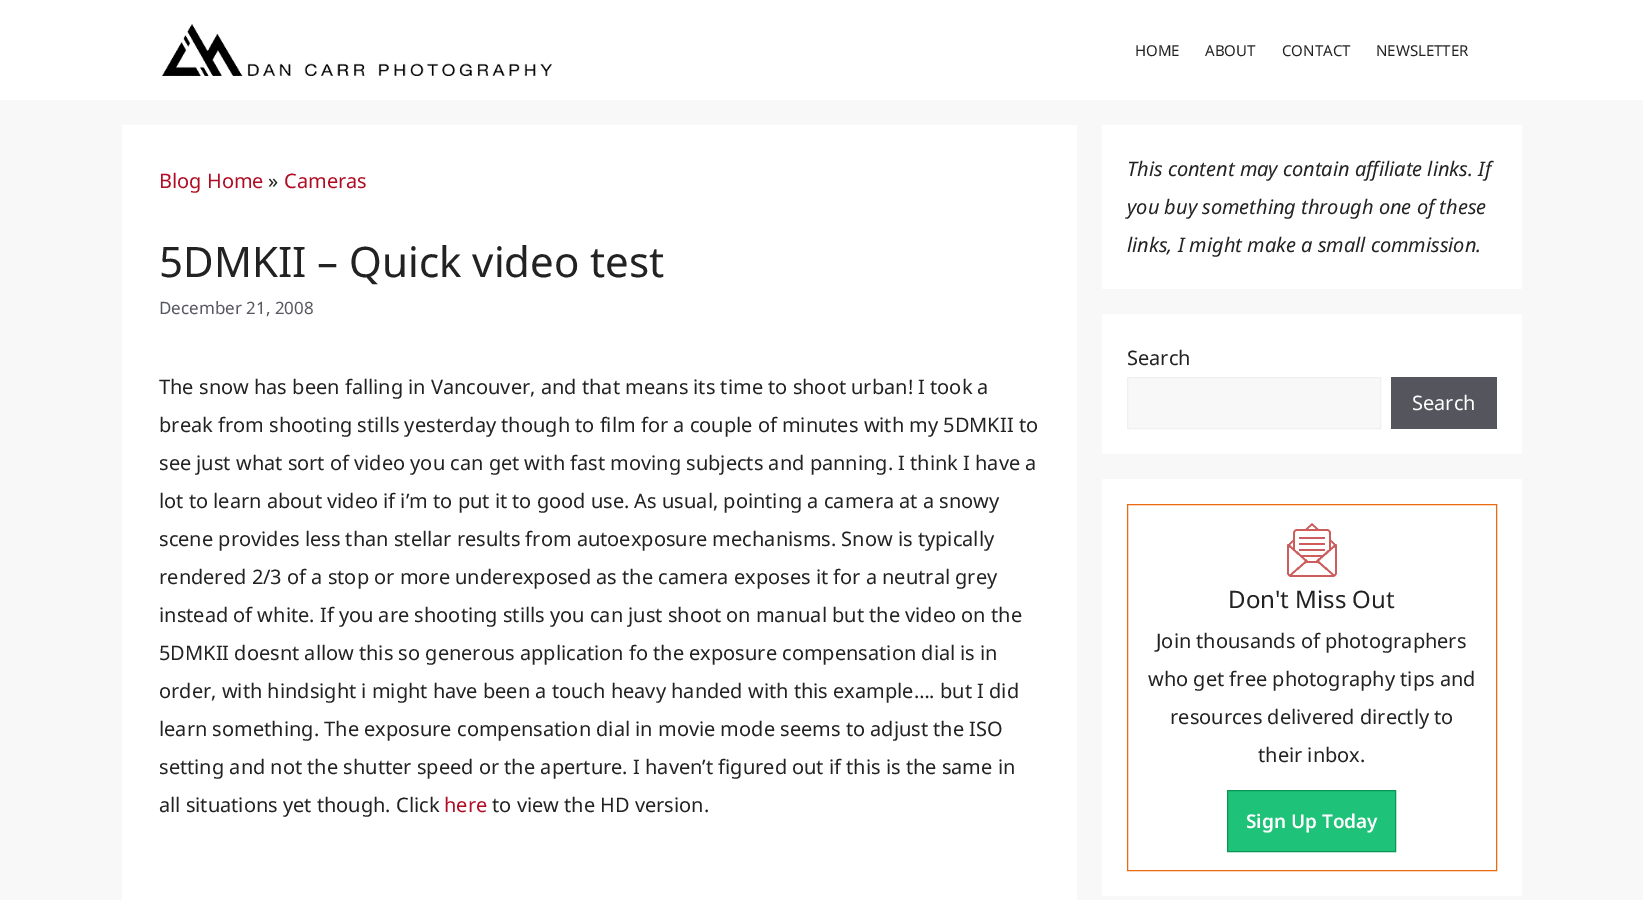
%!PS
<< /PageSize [1643 900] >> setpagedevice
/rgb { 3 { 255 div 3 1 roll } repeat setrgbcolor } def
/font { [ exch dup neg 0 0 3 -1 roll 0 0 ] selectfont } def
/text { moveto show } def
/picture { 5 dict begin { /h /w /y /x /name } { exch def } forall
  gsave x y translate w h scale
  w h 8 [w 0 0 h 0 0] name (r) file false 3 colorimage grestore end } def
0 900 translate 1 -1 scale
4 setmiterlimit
248 248 248 rgb
0 0 1643 900 rectfill
255 255 255 rgb
0 0 1643 100 rectfill
(img_01.rgb) 162 24 390 52 picture
122 125 955 775 rectfill
1102 125 420 164 rectfill
1102 314 420 140 rectfill
248 248 248 rgb
1127.5 377.5 moveto 253 0 rlineto 0 51 rlineto -253 0 rlineto closepath gsave fill grestore
240 240 240 rgb
stroke
85 85 94 rgb
1391 377 106 52 rectfill
255 255 255 rgb
1102 479 420 417 rectfill
236 105 14 rgb
1127.5 504.5 369 366 rectstroke
(img_02.rgb) 1287 523 50 54 picture
30 194 121 rgb
1227.5 790.5 moveto 168 0 rlineto 0 61 rlineto -168 0 rlineto closepath gsave fill grestore
8 150 87 rgb
stroke
/NotoSans-Regular 15 font
34 34 34 rgb
(HOME) 1135 56 text
(ABOUT) 1205 56 text
(CONTACT) 1282 56 text
(NEWSLETTER) 1376 56 text
/NotoSans-Regular 20 font
176 13 36 rgb
(Blog Home) 159 188 text
34 34 34 rgb
(») 268 188 text
176 13 36 rgb
(Cameras) 284 188 text
/NotoSans-Regular 42 font
34 34 34 rgb
(5DMKII – Quick video test) 159 277 text
/NotoSans-Regular 17 font
87 87 96 rgb
(December 21, 2008) 159 314 text
/NotoSans-Regular 20 font
34 34 34 rgb
(The snow has been falling in Vancouver, and that means its time to shoot urban! I took a) 159 394 text
(break from shooting stills yesterday though to film for a couple of minutes with my 5DMKII to) 159 432 text
(see just what sort of video you can get with fast moving subjects and panning. I think I have a) 159 470 text
(lot to learn about video if i’m to put it to good use. As usual, pointing a camera at a snowy) 159 508 text
(scene provides less than stellar results from autoexposure mechanisms. Snow is typically) 159 546 text
(rendered 2/3 of a stop or more underexposed as the camera exposes it for a neutral grey) 159 584 text
(instead of white. If you are shooting stills you can just shoot on manual but the video on the) 159 622 text
(5DMKII doesnt allow this so generous application fo the exposure compensation dial is in) 159 660 text
(order, with hindsight i might have been a touch heavy handed with this example…. but I did) 159 698 text
(learn something. The exposure compensation dial in movie mode seems to adjust the ISO) 159 736 text
(setting and not the shutter speed or the aperture. I haven’t figured out if this is the same in) 159 774 text
(all situations yet though. Click) 159 812 text
176 13 36 rgb
(here) 444 812 text
34 34 34 rgb
(to view the HD version.) 492 812 text
/NotoSans-Italic 20 font
(This content may contain affiliate links. If) 1127 176 text
(you buy something through one of these) 1127 214 text
(links, I might make a small commission.) 1127 252 text
/NotoSans-Regular 20 font
(Search) 1127 365 text
255 255 255 rgb
(Search) 1412 410 text
/NotoSans-Regular 24 font
34 34 34 rgb
(Don't Miss Out) 1228 608 text
/NotoSans-Regular 20 font
(Join thousands of photographers) 1156 648 text
(who get free photography tips and) 1148 686 text
(resources delivered directly to) 1170 724 text
(their inbox.) 1258 762 text
/NotoSans-SemiBold 19 font
255 255 255 rgb
(Sign Up Today) 1246 828 text
showpage
